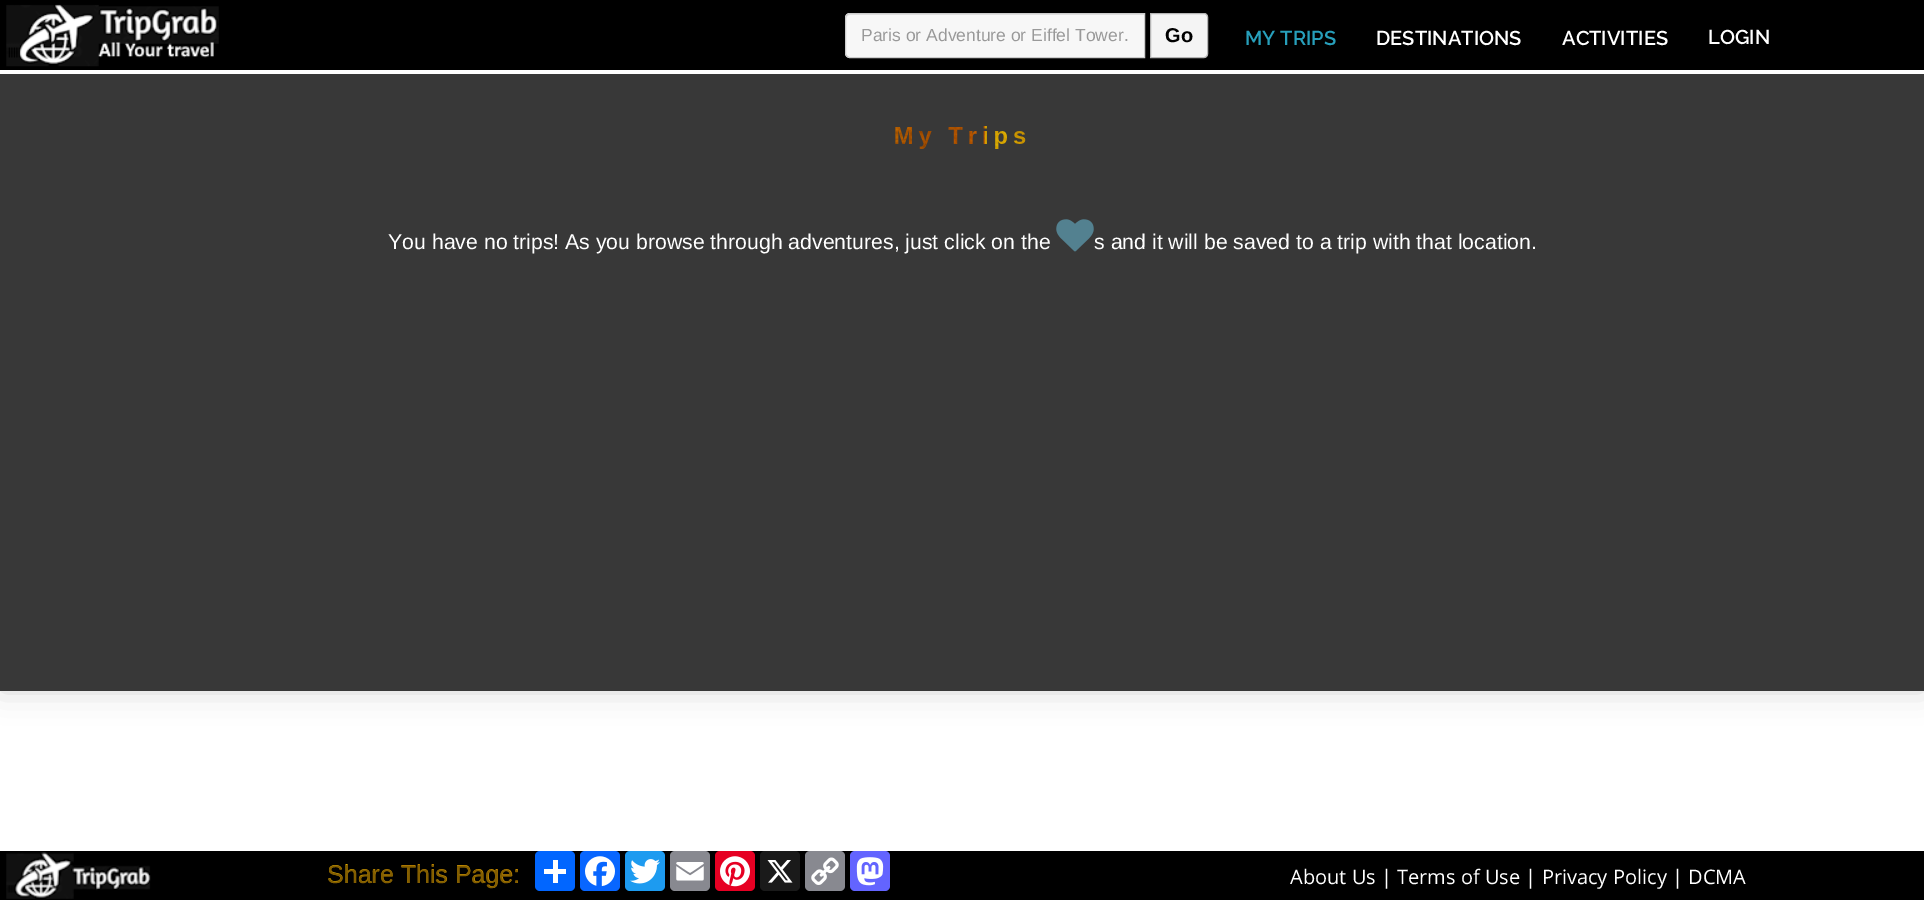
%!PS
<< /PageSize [1924 900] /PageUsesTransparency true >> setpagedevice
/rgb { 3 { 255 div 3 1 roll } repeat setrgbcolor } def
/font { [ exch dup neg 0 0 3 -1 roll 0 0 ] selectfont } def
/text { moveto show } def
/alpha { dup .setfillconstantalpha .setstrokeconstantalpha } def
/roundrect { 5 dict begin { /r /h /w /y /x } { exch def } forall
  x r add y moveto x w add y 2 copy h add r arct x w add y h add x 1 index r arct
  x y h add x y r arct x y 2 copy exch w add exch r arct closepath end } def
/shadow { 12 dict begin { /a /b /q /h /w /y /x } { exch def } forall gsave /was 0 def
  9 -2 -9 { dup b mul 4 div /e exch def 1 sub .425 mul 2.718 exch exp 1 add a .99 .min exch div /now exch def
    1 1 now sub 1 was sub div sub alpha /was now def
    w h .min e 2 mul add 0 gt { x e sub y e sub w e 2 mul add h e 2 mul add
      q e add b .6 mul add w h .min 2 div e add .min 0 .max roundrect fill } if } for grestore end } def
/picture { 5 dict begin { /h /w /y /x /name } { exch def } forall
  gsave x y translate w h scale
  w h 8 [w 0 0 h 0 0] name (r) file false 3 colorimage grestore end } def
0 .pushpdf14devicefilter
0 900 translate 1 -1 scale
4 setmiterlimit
255 255 255 rgb
0 0 1924 900 rectfill
0 0 0 rgb
0 0 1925 691 0 15.5 0.16 shadow
0 0 1924 70 rectfill
255 255 255 rgb
0 70 1924 4 rectfill
(img_01.rgb) 6 4 213 63 picture
247 247 247 rgb
850 13 moveto 295 0 rlineto 0 45 rlineto -295 0 rlineto -3 0 -5 -2 -5 -5 rcurveto 0 -35 rlineto 0 -3 2 -5 5 -5 rcurveto closepath fill
228 228 228 rgb
850 15 moveto 294 0 rlineto 0 -1 rlineto -294 0 rlineto -3 0 -4 2 -4 5 rcurveto 0 -2 2 -4 4 -4 rcurveto closepath fill
204 204 204 rgb
850 13.5 moveto 294.5 0 rlineto 0 44 rlineto -294.5 0 rlineto -2.5 0 -4.5 -2 -4.5 -4.5 rcurveto 0 -35 rlineto 0 -2.5 2 -4.5 4.5 -4.5 rcurveto closepath stroke
244 244 244 rgb
1150.5 13.5 moveto 53.5 0 rlineto 2 0 3.5 1.5 3.5 3.5 rcurveto 0 37 rlineto 0 2 -1.5 3.5 -3.5 3.5 rcurveto -53.5 0 rlineto closepath gsave fill grestore
181 181 181 rgb
stroke
56 56 56 rgb
0 74 1924 617 rectfill
(img_02.rgb) 895 126 131 23 picture
(img_03.rgb) 1056 219 38 33 picture
0 0 0 rgb
0 851 1924 49 rectfill
(img_04.rgb) 6 852 145 47 picture
(img_05.rgb) 328 864 190 24 picture
1 102 255 rgb
535 851 40 40 5 roundrect fill
255 255 255 rgb
553 860 5 23 rectfill
544 869 22 5 rectfill
8 102 255 rgb
580 851 40 40 5 roundrect fill
(img_06.rgb) 585 856 30 31 picture
29 155 240 rgb
625 851 40 40 5 roundrect fill
(img_07.rgb) 630 859 30 25 picture
136 137 144 rgb
670 851 40 40 5 roundrect fill
(img_08.rgb) 676 862 28 19 picture
230 0 35 rgb
715 851 40 40 5 roundrect fill
(img_09.rgb) 720 856 30 31 picture
26 26 26 rgb
760 851 40 40 5 roundrect fill
(img_10.rgb) 767 860 26 23 picture
136 137 144 rgb
805 851 40 40 5 roundrect fill
(img_11.rgb) 811 857 28 28 picture
99 100 255 rgb
850 851 40 40 5 roundrect fill
(img_12.rgb) 856 857 28 29 picture
/LiberationSans-Regular 17.5 font
153 153 153 rgb
(Paris or Adventure or Eiffel Tower.) 861 41 text
/LiberationSans-Bold 20 font
0 0 0 rgb
(Go) 1165 42 text
/Raleway-SemiBold 20 font
39 159 187 rgb
(MY TRIPS) 1245 45 text
255 255 255 rgb
(DESTINATIONS) 1376 45 text
(ACTIVITIES) 1562 45 text
(LOGIN) 1708 44 text
/LiberationSans-Regular 21.25 font
(You have no trips! As you browse through adventures, just click on the) 388 249 text
(s and it will be saved to a trip with that location.) 1094 249 text
/LiberationSans-Regular 25 font
131 94 0 rgb
(Share This Page:) 327 883 text
/OpenSans-Regular 20 font
255 255 255 rgb
(About Us | Terms of Use | Privacy Policy | DCMA) 1290 884 text
.poppdf14devicefilter showpage
